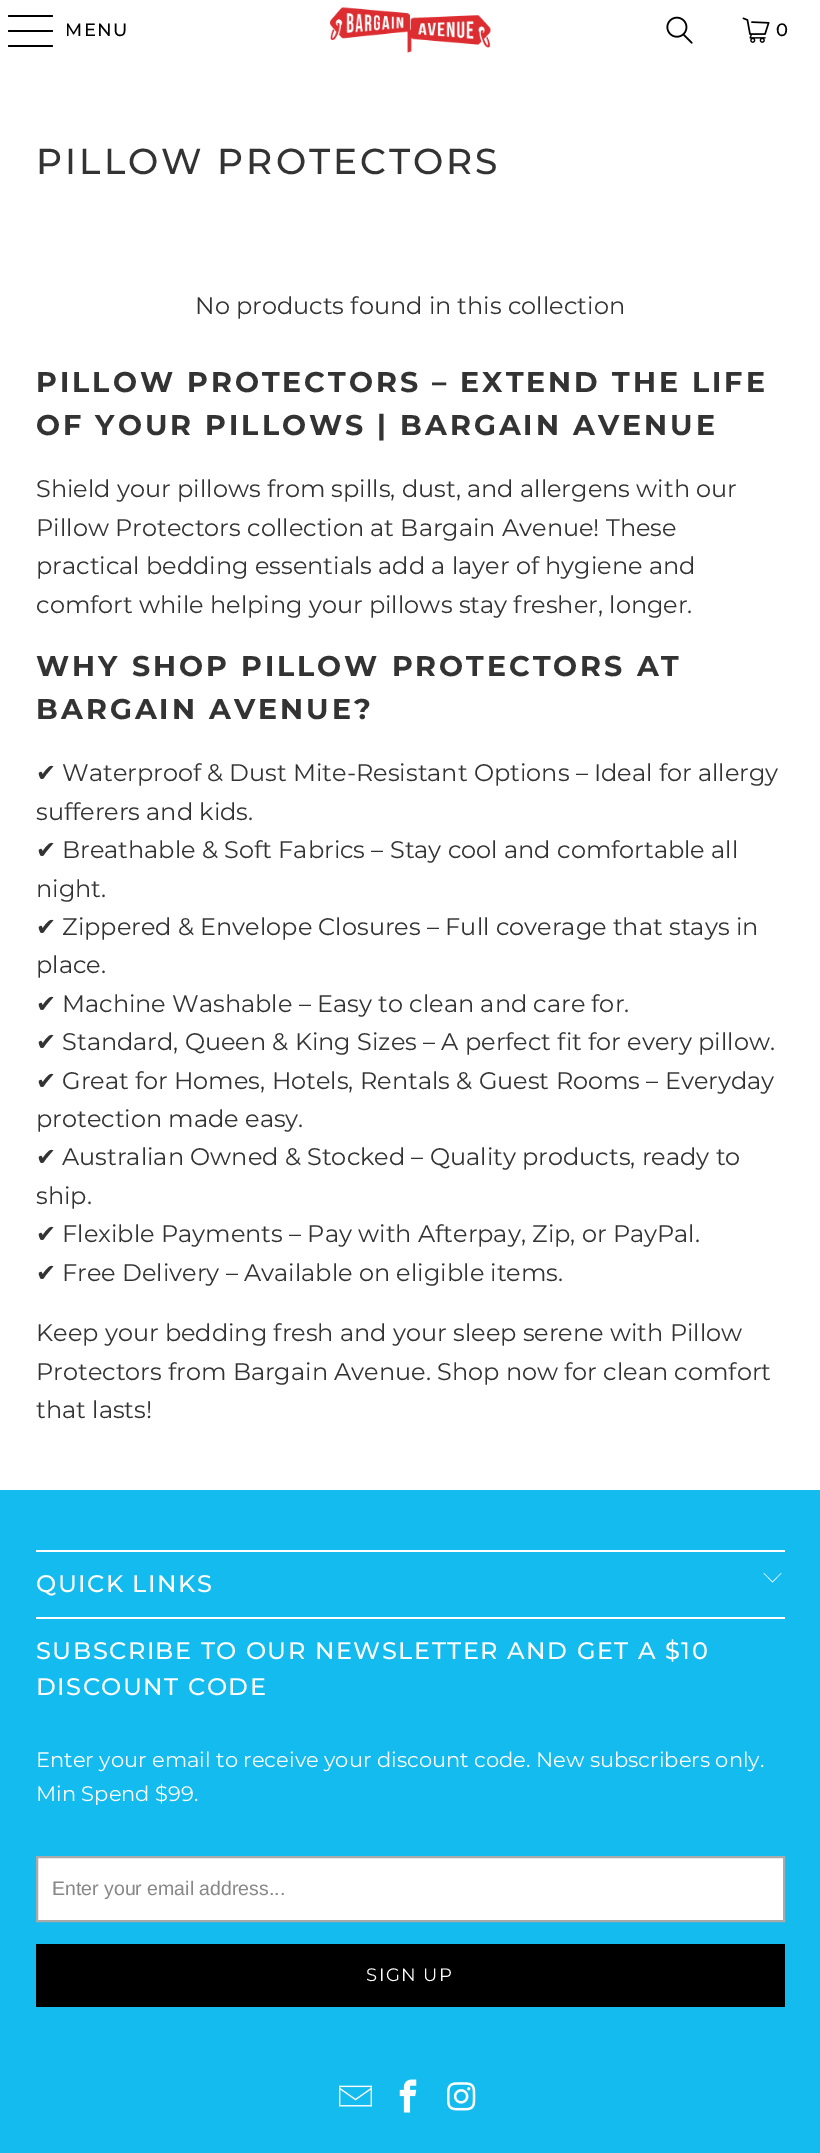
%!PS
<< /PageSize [820 2153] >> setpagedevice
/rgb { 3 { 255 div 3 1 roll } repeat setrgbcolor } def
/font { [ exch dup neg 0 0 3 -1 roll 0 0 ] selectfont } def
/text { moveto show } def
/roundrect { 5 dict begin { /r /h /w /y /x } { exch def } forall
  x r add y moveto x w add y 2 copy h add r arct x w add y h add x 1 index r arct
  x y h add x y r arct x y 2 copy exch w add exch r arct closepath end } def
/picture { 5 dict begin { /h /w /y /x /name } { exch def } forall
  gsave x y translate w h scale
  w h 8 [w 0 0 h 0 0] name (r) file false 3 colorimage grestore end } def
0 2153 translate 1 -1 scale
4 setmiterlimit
255 255 255 rgb
0 0 820 2153 rectfill
0 0 0 rgb
8 15 45 2 1 roundrect fill
8 30 45 2 1 roundrect fill
8 45 45 2 1 roundrect fill
(img_01.rgb) 330 7 161 46 picture
(img_02.rgb) 666 16 27 28 picture
(img_03.rgb) 742 17 28 26 picture
19 187 238 rgb
0 1490 820 663 rectfill
255 255 255 rgb
36 1550 749 2 rectfill
772.5 1582.5 moveto -9 -9.5 rlineto 0.5 0 rlineto 8.5 8.5 rlineto 8.5 -8.5 rlineto 0.5 0 rlineto closepath fill
36 1617 749 2 rectfill
37 1857 moveto 747 0 rlineto 0 64 rlineto -747 0 rlineto closepath gsave fill grestore
170 170 170 rgb
2 setlinewidth
stroke
0 0 0 rgb
36 1944 749 63 rectfill
(img_04.rgb) 339 2085 33 22 picture
(img_05.rgb) 399 2079 18 34 picture
(img_06.rgb) 447 2082 29 29 picture
/Montserrat-Medium 18 font
65 36 moveto 1.5 0 (MENU) ashow
776 36 moveto 1.5 0 (0) ashow
/Montserrat-Medium 36 font
51 51 51 rgb
36 174 moveto 3 0 (PILLOW PROTECTORS) ashow
/Montserrat-Regular 24 font
(No products found in this collection) 195 314 text
/Montserrat-Bold 28.5 font
36 392 moveto 3 0 (PILLOW PROTECTORS – EXTEND THE LIFE) ashow
36 435 moveto 3 0 (OF YOUR PILLOWS | BARGAIN AVENUE) ashow
/Montserrat-Regular 24 font
(Shield your pillows from spills, dust, and allergens with our) 36 497 text
(Pillow Protectors collection at Bargain Avenue! These) 36 536 text
(practical bedding essentials add a layer of hygiene and) 36 574 text
(comfort while helping your pillows stay fresher, longer.) 36 613 text
/Montserrat-Bold 28.5 font
36 676 moveto 3 0 (WHY SHOP PILLOW PROTECTORS AT) ashow
36 719 moveto 3 0 (BARGAIN AVENUE?) ashow
/DejaVuSans-Regular 24 font
(✔) 36 781 text
/Montserrat-Regular 24 font
(Waterproof & Dust Mite-Resistant Options – Ideal for allergy) 62 781 text
(sufferers and kids.) 36 820 text
/DejaVuSans-Regular 24 font
(✔) 36 858 text
/Montserrat-Regular 24 font
(Breathable & Soft Fabrics – Stay cool and comfortable all) 62 858 text
(night.) 36 897 text
/DejaVuSans-Regular 24 font
(✔) 36 935 text
/Montserrat-Regular 24 font
(Zippered & Envelope Closures – Full coverage that stays in) 62 935 text
(place.) 36 973 text
/DejaVuSans-Regular 24 font
(✔) 36 1012 text
/Montserrat-Regular 24 font
(Machine Washable – Easy to clean and care for.) 62 1012 text
/DejaVuSans-Regular 24 font
(✔) 36 1050 text
/Montserrat-Regular 24 font
(Standard, Queen & King Sizes – A perfect fit for every pillow.) 62 1050 text
/DejaVuSans-Regular 24 font
(✔) 36 1089 text
/Montserrat-Regular 24 font
(Great for Homes, Hotels, Rentals & Guest Rooms – Everyday) 62 1089 text
(protection made easy.) 36 1127 text
/DejaVuSans-Regular 24 font
(✔) 36 1165 text
/Montserrat-Regular 24 font
(Australian Owned & Stocked – Quality products, ready to) 62 1165 text
(ship.) 36 1204 text
/DejaVuSans-Regular 24 font
(✔) 36 1242 text
/Montserrat-Regular 24 font
(Flexible Payments – Pay with Afterpay, Zip, or PayPal.) 62 1242 text
/DejaVuSans-Regular 24 font
(✔) 36 1281 text
/Montserrat-Regular 24 font
(Free Delivery – Available on eligible items.) 62 1281 text
(Keep your bedding fresh and your sleep serene with Pillow) 36 1341 text
(Protectors from Bargain Avenue. Shop now for clean comfort) 36 1380 text
(that lasts!) 36 1418 text
/Montserrat-Medium 24 font
255 255 255 rgb
36 1592 moveto 1.5 0 (QUICK LINKS) ashow
36 1659 moveto 1.5 0 (SUBSCRIBE TO OUR NEWSLETTER AND GET A $10) ashow
36 1695 moveto 1.5 0 (DISCOUNT CODE) ashow
/Montserrat-Regular 21 font
(Enter your email to receive your discount code. New subscribers only.) 36 1767 text
(Min Spend $99.) 36 1801 text
/LiberationSans-Regular 19.5 font
136 136 136 rgb
(Enter your email address...) 52 1895 text
/Montserrat-Regular 18 font
255 255 255 rgb
366 1981 moveto 1.5 0 (SIGN UP) ashow
showpage
